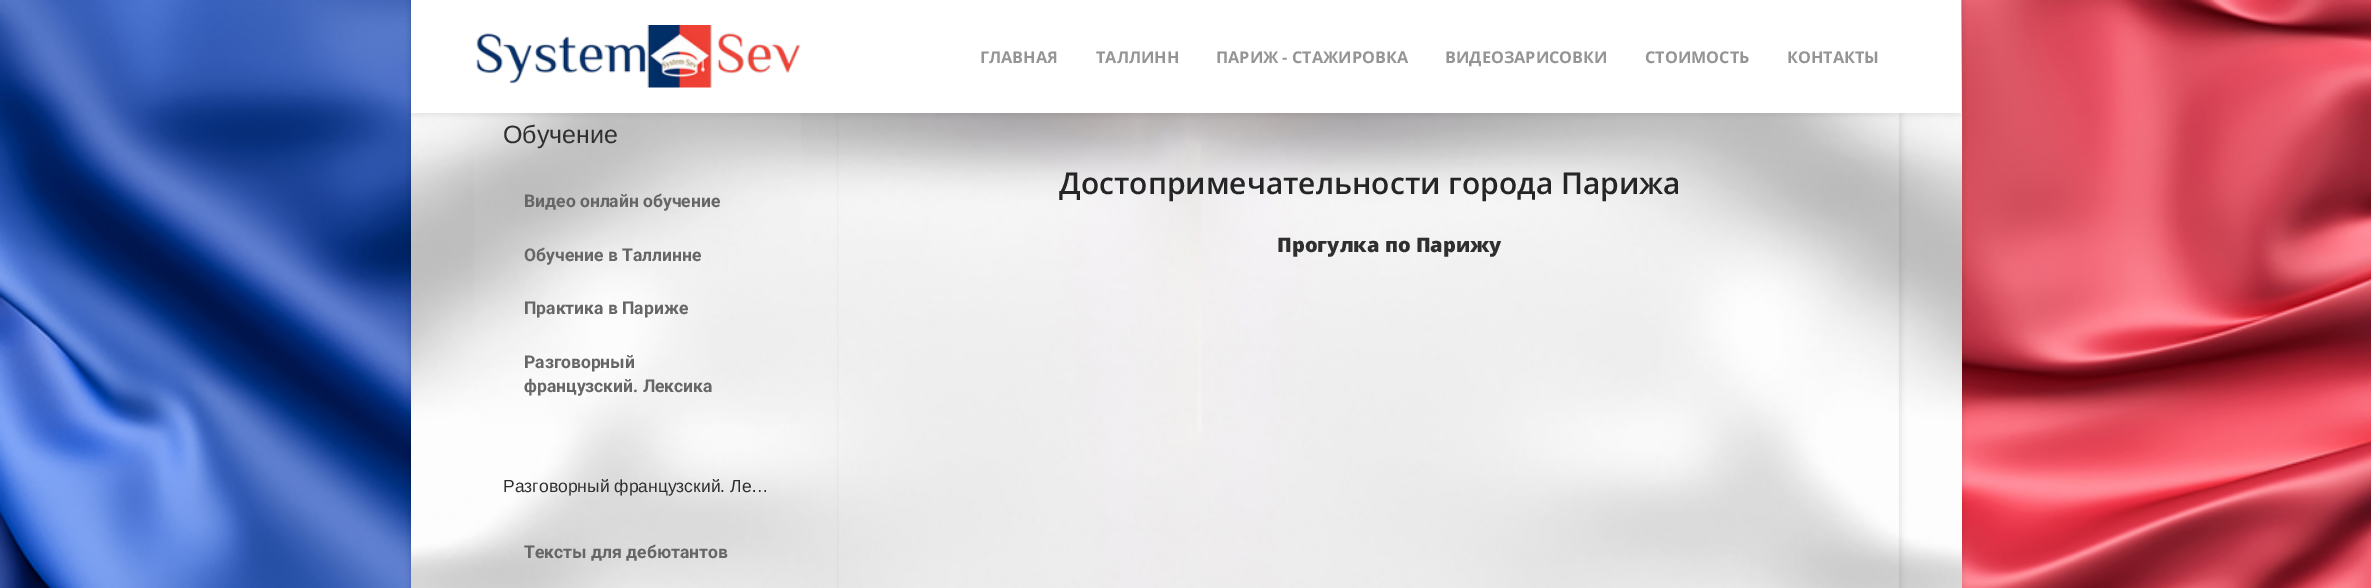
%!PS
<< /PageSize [2371 588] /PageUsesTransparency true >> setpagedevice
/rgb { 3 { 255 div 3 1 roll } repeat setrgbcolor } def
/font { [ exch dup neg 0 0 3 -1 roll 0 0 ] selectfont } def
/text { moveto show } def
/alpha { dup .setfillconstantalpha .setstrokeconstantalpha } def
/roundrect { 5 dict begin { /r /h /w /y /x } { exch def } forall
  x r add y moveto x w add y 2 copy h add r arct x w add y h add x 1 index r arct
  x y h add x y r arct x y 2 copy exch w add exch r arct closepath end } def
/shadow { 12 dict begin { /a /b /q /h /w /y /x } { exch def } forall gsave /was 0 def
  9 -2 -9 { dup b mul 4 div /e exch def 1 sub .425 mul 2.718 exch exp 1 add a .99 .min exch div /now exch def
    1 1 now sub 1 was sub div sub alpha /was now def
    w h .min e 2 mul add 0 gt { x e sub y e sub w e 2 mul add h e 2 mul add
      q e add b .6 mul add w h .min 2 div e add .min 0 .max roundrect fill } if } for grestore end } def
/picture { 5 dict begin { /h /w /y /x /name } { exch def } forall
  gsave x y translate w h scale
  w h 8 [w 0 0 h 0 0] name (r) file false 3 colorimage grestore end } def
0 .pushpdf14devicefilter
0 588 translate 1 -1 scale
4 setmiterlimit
255 255 255 rgb
0 0 2371 588 rectfill
(img_01.rgb) 0 0 2371 588 picture
0 0 0 rgb
411 -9 1550 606 0 3 0.2 shadow
(img_03.rgb) 411 0 1551 588 picture
0.07 alpha
235 235 235 rgb
474 86 327 339 15 roundrect fill
1 alpha
0 0 0 rgb
411 4 1550 112 0 2 0.05 shadow
gsave
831 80 moveto 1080 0 rlineto 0 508 rlineto -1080 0 rlineto closepath 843 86 moveto 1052 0 rlineto 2 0 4 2 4 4 rcurveto 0 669 rlineto 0 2 -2 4 -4 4 rcurveto -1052 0 rlineto -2 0 -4 -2 -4 -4 rcurveto 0 -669 rlineto 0 -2 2 -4 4 -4 rcurveto closepath eoclip newpath
841 90 1060 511 4 3 0.1 shadow
grestore
255 255 255 rgb
411 0 1550 113 rectfill
(img_02.rgb) 476 25 325 63 picture
/OpenSans-Bold 16.25 font
149 149 149 rgb
(ГЛАВНАЯ) 980 63 text
(ТАЛЛИНН) 1096 63 text
(ПАРИЖ - СТАЖИРОВКА) 1216 63 text
(ВИДЕОЗАРИСОВКИ) 1445 63 text
(СТОИМОСТЬ) 1645 63 text
(КОНТАКТЫ) 1787 63 text
/LiberationSans-Regular 25 font
48 47 47 rgb
(Обучение) 503 143 text
/Roboto-Bold 17.5 font
102 102 102 rgb
(Видео онлайн обучение) 524 207 text
(Обучение в Таллинне) 524 261 text
(Практика в Париже) 524 314 text
(Разговорный) 524 368 text
(французский. Лексика) 524 392 text
/LiberationSans-Regular 17.5 font
48 47 47 rgb
(Разговорный французский. Ле…) 503 492 text
/Roboto-Bold 17.5 font
102 102 102 rgb
(Тексты для дебютантов) 524 558 text
/OpenSans-SemiBold 30 font
37 37 37 rgb
(Достопримечательности города Парижа) 1059 194 text
/OpenSans-ExtraBold 20 font
48 47 47 rgb
(Прогулка по Парижу) 1277 252 text
.poppdf14devicefilter showpage
